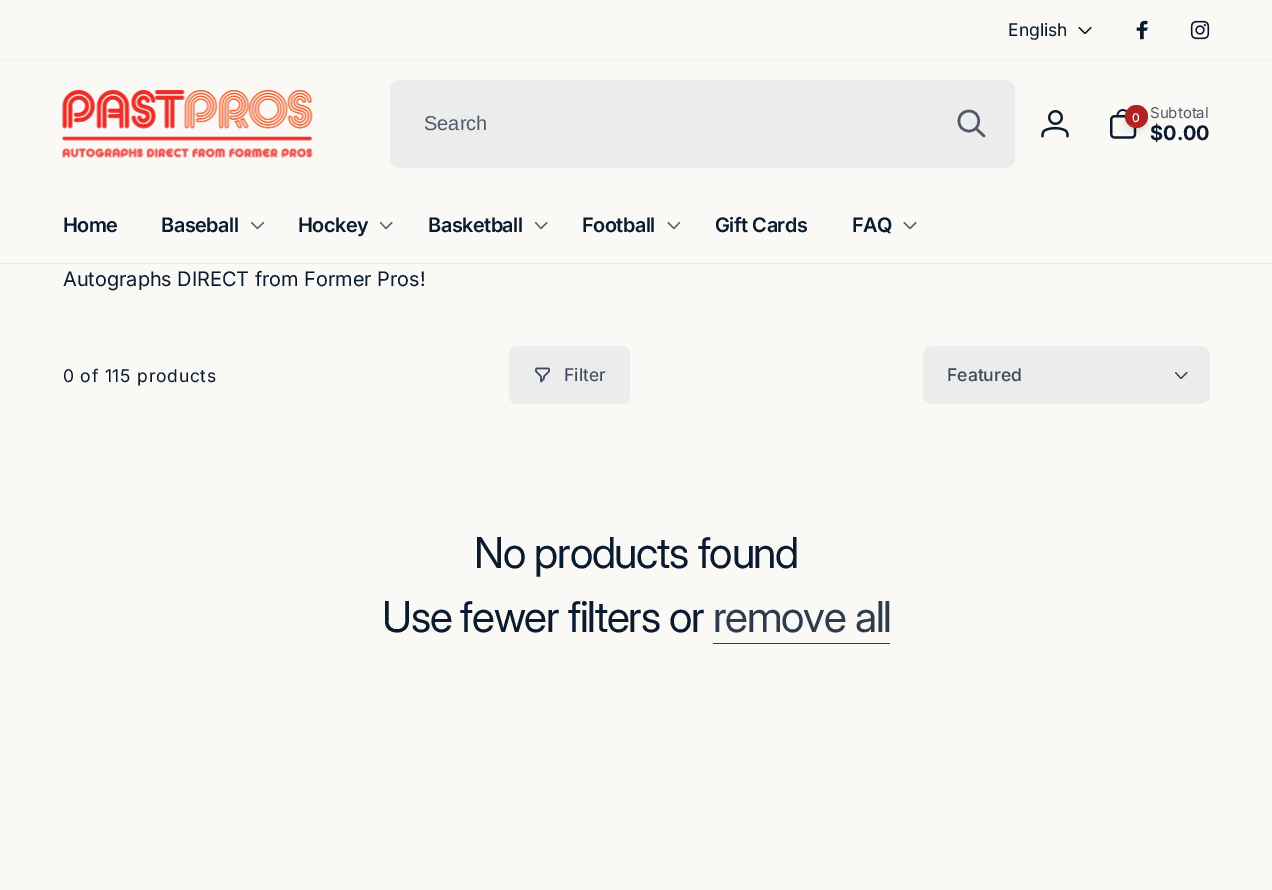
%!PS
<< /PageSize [1272 890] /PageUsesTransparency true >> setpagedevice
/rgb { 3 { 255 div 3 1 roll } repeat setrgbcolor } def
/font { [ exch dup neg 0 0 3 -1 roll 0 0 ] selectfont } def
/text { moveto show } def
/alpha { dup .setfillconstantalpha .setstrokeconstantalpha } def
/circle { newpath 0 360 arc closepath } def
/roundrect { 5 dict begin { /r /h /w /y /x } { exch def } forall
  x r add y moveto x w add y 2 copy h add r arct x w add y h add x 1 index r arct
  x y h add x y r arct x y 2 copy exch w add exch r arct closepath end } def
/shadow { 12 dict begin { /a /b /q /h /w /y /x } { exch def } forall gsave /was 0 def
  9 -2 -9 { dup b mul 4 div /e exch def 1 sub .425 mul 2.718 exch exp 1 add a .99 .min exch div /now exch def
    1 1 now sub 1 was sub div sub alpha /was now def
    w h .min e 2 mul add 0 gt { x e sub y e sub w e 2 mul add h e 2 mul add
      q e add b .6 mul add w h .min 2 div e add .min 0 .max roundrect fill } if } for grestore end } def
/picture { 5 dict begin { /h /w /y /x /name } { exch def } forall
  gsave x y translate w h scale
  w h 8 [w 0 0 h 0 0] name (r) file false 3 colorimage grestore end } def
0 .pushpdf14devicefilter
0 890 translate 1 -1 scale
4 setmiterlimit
250 249 246 rgb
0 0 1272 890 rectfill
238 238 236 rgb
0 60 1272 1 rectfill
10 26 47 rgb
1.2 setlinewidth
1 setlinecap
1 setlinejoin
1091 27.5 moveto -6 6 rlineto -6 -6 rlineto stroke
(img_01.rgb) 1136 20 12 20 picture
(img_02.rgb) 1190 20 20 20 picture
231 231 230 rgb
0 263 1272 1 rectfill
(img_03.rgb) 62 90 251 68 picture
236 236 236 rgb
390 80 625 88 10 roundrect fill
78 89 104 rgb
2.5 setlinewidth
984 136 moveto -8 -7.5 rlineto 969 131 moveto 13 0 13 -20 0 -20 rcurveto -13.5 0 -13.5 20 0 20 rcurveto closepath stroke
(img_04.rgb) 1041 110 28 28 picture
(img_05.rgb) 1110 109 27 30 picture
10 26 47 rgb
1126 109 20 20 10 2.5 0.06 shadow
1126 111 20 20 10 4 0.1 shadow
178 34 34 rgb
1136.5 116.5 11.5 circle fill
82 93 107 rgb
1.2 setlinewidth
263.5 222.5 moveto -6 6 rlineto -6 -6 rlineto stroke
392 222.5 moveto -6 6 rlineto -5.5 -6 rlineto stroke
547 222.5 moveto -6 6 rlineto -5.5 -6 rlineto stroke
679.5 222.5 moveto -5.5 6 rlineto -6 -6 rlineto stroke
916 222.5 moveto -6 6 rlineto -6 -6 rlineto stroke
236 236 236 rgb
509 346 121 58 8 roundrect fill
(img_06.rgb) 535 367 15 16 picture
923 346 287 58 10 roundrect fill
60 72 89 rgb
1187 372.5 moveto -6 6 rlineto -5.5 -6 rlineto stroke
46 59 77 rgb
713 643 177 1 rectfill
/Inter-Regular 17.5 font
10 26 47 rgb
(English) 1008 36 text
/LiberationSans-Regular 20 font
78 89 104 rgb
(Search) 424 130 text
/Inter-Medium 12 font
255 255 255 rgb
(0) 1132 122 text
/Inter-Regular 15 font
78 89 104 rgb
(Subtotal) 1150 118 text
/Inter-Bold 20 font
10 26 47 rgb
($0.00) 1150 140 text
/Inter-SemiBold 20 font
63 232 moveto -0.5 0 (Home) ashow
161 232 moveto -0.5 0 (Baseball) ashow
298 232 moveto -0.5 0 (Hockey) ashow
428 232 moveto -0.5 0 (Basketball) ashow
582 232 moveto -0.5 0 (Football) ashow
715 232 moveto -0.5 0 (Gift Cards) ashow
852 232 moveto -0.5 0 (FAQ) ashow
/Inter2-Regular 20 font
(Autographs DIRECT from Former Pros!) 63 286 text
/Inter-Regular 17.5 font
63 382 moveto 0.75 0 (0 of 115 products) ashow
60 72 89 rgb
(Filter) 564 381 text
/Inter-Medium 17.5 font
(Featured) 947 381 text
/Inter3-Regular 42.5 font
10 26 47 rgb
474 568 moveto -1.25 0 (No products found) ashow
382 632 moveto -1.25 0 (Use fewer filters or) ashow
46 59 77 rgb
713 632 moveto -1.25 0 (remove all) ashow
.poppdf14devicefilter showpage
